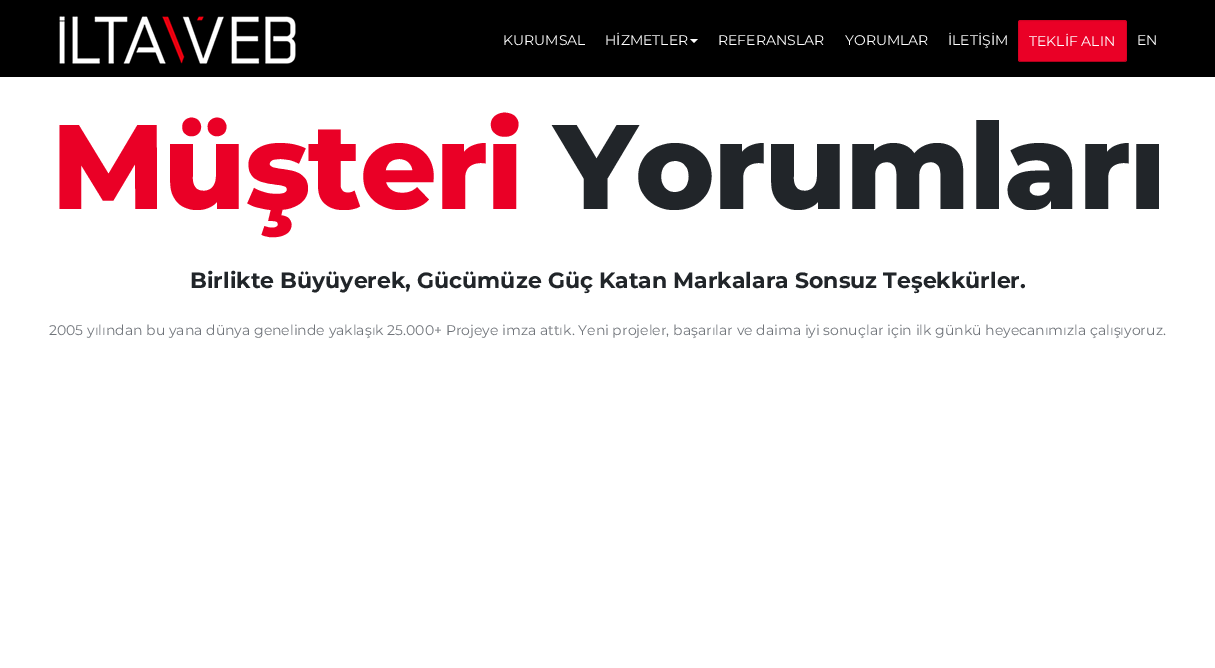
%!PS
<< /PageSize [1215 668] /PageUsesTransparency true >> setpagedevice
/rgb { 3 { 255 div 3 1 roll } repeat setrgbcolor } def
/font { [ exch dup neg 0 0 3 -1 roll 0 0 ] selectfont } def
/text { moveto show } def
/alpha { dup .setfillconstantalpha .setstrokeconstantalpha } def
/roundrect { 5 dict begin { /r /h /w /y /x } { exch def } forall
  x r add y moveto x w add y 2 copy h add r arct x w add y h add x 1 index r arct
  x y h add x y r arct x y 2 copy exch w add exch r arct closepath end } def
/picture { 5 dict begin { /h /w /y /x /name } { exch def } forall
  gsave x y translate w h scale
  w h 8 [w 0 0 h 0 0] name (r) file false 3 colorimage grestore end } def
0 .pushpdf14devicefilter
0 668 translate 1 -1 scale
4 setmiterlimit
255 255 255 rgb
0 0 1215 668 rectfill
0 0 0 rgb
0 0 1215 77 rectfill
(img_01.rgb) 59 16 237 48 picture
255 255 255 rgb
690 39 moveto 8 0 rlineto -4 4 rlineto closepath fill
234 0 38 rgb
1018 20 109 42 2.5 roundrect fill
0.25 alpha
0 0 0 rgb
1126 61 moveto -1.5 0.5 rlineto -86.5 0 rlineto -17.5 0 rlineto -1.5 -0.5 rlineto stroke
0.1 alpha
1019 61 moveto -1.5 -1.5 -0.5 -17 -0.5 -20 rcurveto 0 -12.5 rlineto 0 -0.5 -1.5 -8 2 -8 rcurveto 104 0 rlineto 3.5 0 2 7.5 2 8 rcurveto 0 12.5 rlineto 0 3 1 18.5 -0.5 20 rcurveto stroke
/Montserrat-Regular 14 font
1 alpha
255 255 255 rgb
(KURUMSAL) 503 45 text
(HİZMETLER) 605 45 text
(REFERANSLAR) 718 45 text
(YORUMLAR) 845 45 text
(İLETİŞİM) 948 45 text
(TEKLİF ALIN) 1029 46 text
(EN) 1137 45 text
/Montserrat-ExtraBold 120 font
234 0 38 rgb
51 209 moveto -2 0 (Müşteri) ashow
33 37 41 rgb
554 209 moveto -2 0 (Yorumları) ashow
/Montserrat-Bold 22 font
(Birlikte Büyüyerek, Gücümüze Güç Katan Markalara Sonsuz Teşekkürler.) 190 288 text
/Montserrat-Regular 14 font
112 116 122 rgb
(2005 yılından bu yana dünya genelinde yaklaşık 25.000+ Projeye imza attık. Yeni projeler, başarılar ve daima iyi sonuçlar için ilk günkü heyecanımızla çalışıyoruz.) 49 335 text
.poppdf14devicefilter showpage
